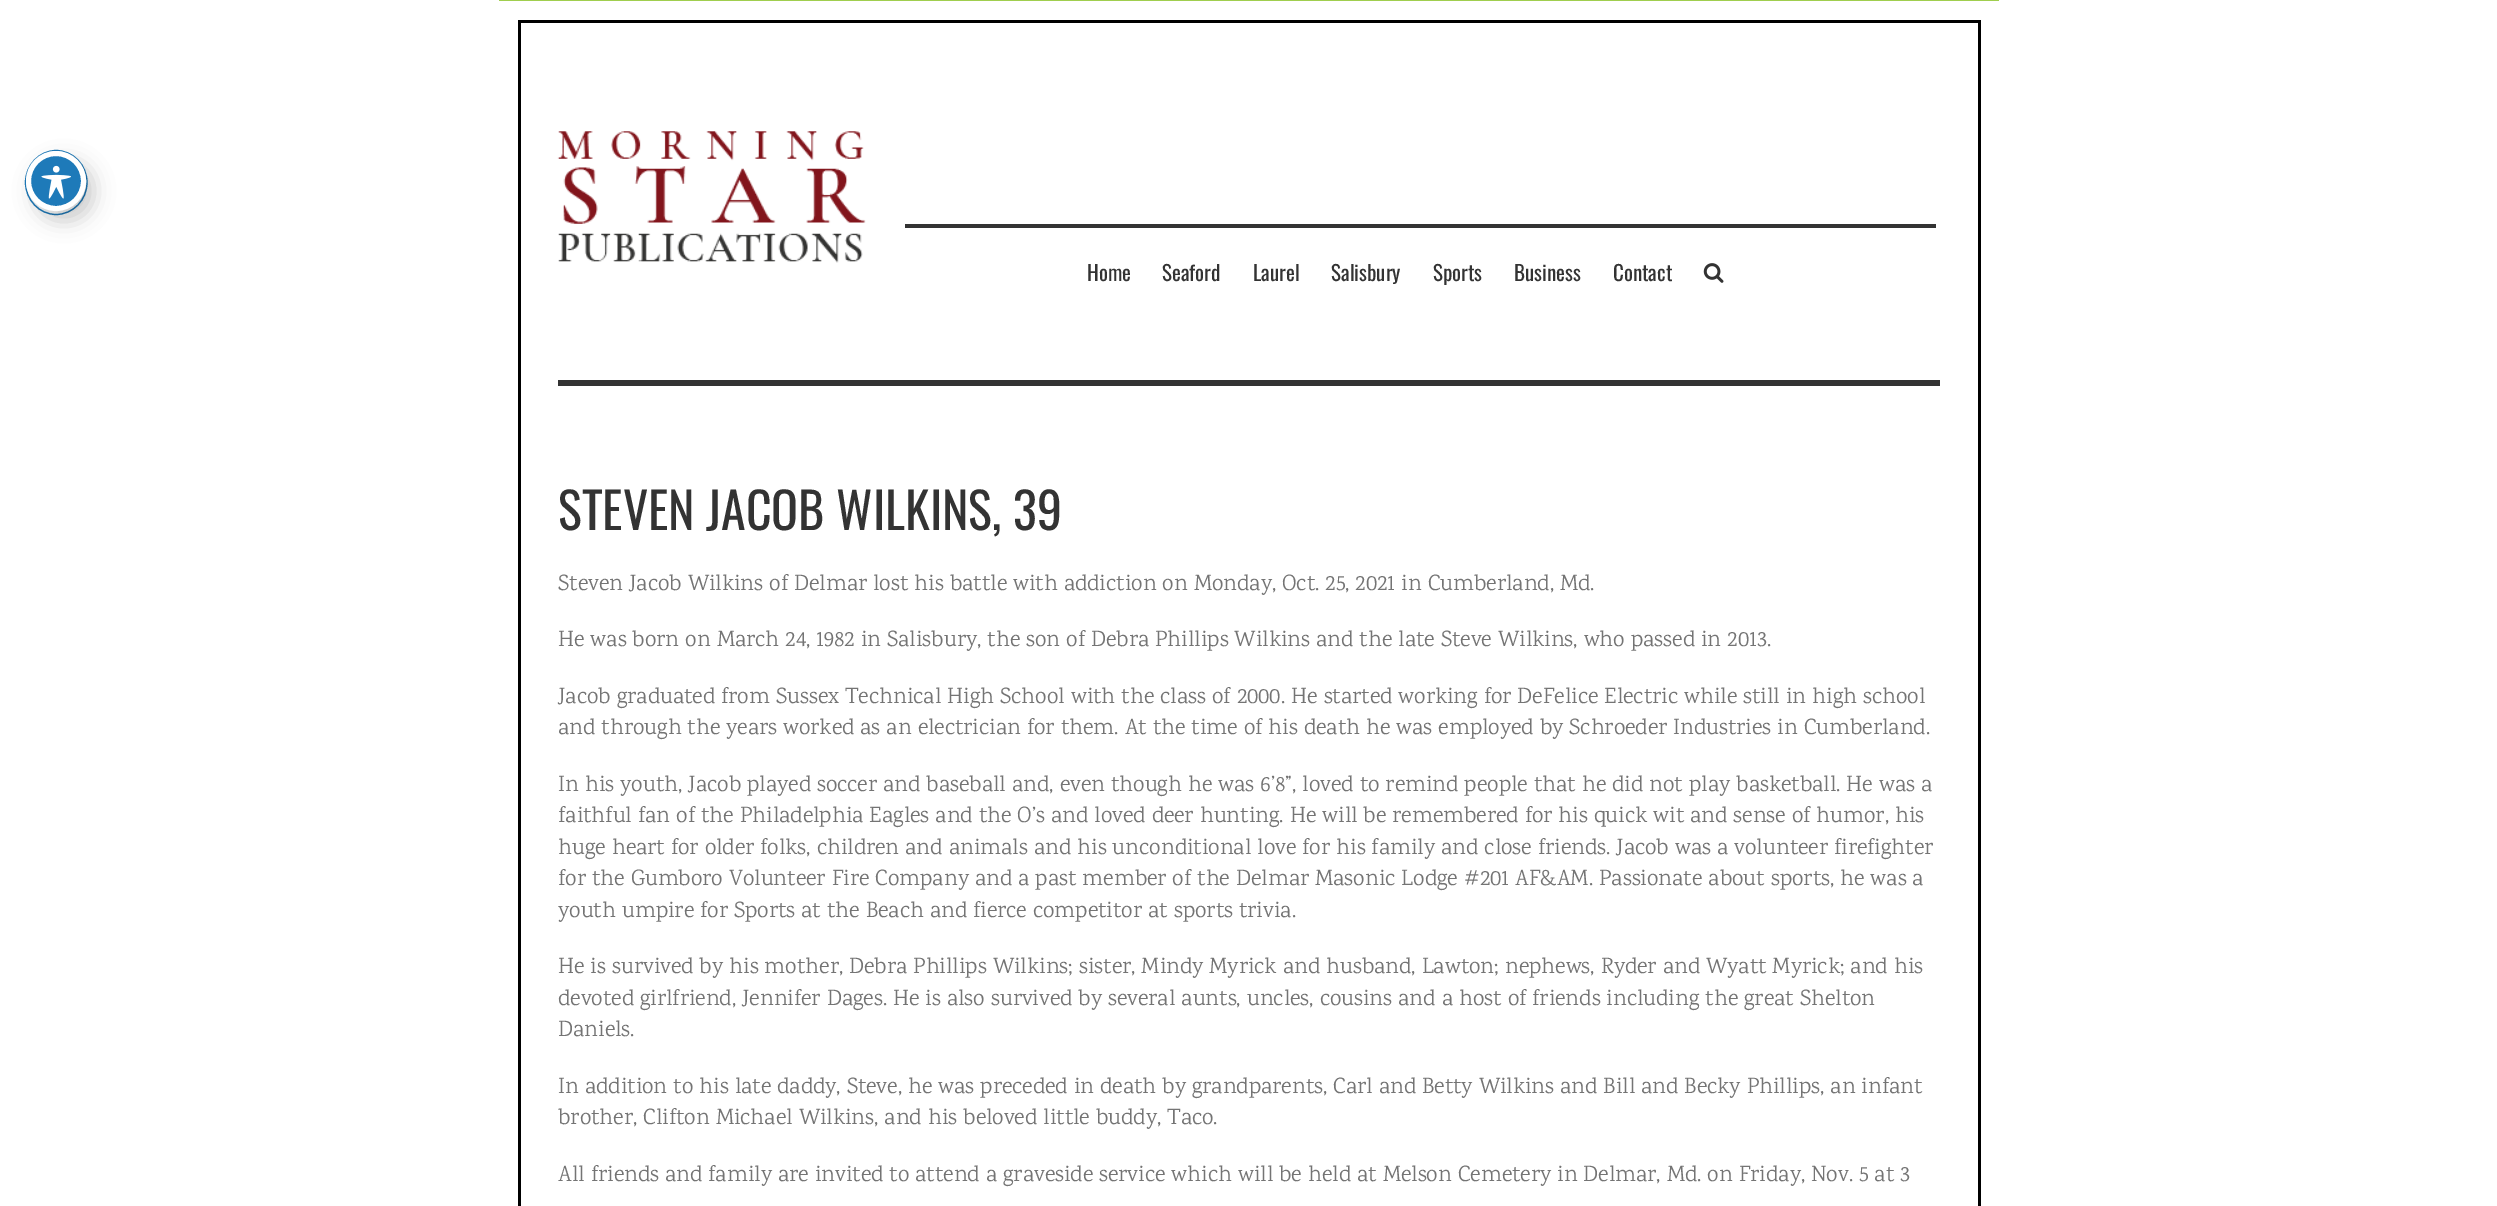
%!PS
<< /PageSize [2497 1206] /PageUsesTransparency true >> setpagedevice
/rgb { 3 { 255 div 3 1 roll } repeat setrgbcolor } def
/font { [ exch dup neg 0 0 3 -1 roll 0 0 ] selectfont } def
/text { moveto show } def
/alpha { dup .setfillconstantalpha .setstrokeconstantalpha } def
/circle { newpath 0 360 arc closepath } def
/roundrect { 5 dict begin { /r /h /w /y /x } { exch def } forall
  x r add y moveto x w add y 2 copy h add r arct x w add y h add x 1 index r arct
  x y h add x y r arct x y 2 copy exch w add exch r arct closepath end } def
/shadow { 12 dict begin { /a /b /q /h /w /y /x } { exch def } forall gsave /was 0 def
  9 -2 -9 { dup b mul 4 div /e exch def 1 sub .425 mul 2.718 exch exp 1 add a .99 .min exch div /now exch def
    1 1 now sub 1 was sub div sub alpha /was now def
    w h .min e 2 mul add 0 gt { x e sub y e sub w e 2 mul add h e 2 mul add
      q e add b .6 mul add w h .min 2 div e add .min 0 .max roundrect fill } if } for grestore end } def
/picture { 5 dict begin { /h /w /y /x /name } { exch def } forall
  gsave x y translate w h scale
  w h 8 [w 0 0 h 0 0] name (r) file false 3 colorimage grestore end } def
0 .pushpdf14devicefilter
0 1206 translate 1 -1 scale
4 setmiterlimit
255 255 255 rgb
0 0 2497 1206 rectfill
30 122 185 rgb
1.2 setlinewidth
56 150.5 moveto 17 0 31 14.5 31 32 rcurveto 0 17.5 -14 32 -31 32 rcurveto -16.5 0 -30.5 -14.5 -30.5 -32 rcurveto 0 -17.5 14 -32 30.5 -32 rcurveto closepath stroke
0 0 0 rgb
34 161 60 60 30 10 0.2 shadow
30 122 185 rgb
56 181 27.5 circle gsave fill grestore
255 255 255 rgb
5 setlinewidth
stroke
(img_01.rgb) 41 165 30 34 picture
160 206 78 rgb
499 0 1500 1 rectfill
0 0 0 rgb
518 20 1462 3 rectfill
1978 20 3 391 rectfill
518 20 3 391 rectfill
51 51 51 rgb
558 380 1382 6 rectfill
(img_02.rgb) 557 131 309 132 picture
905 224 1031 4 rectfill
(img_03.rgb) 1703 263 21 20 picture
0 0 0 rgb
1978 411 3 795 rectfill
518 411 3 795 rectfill
/Oswald-Regular 21 font
51 51 51 rgb
(Home) 1087 281 text
(Seaford) 1162 281 text
(Laurel) 1253 281 text
(Salisbury) 1331 281 text
(Sports) 1433 281 text
(Business) 1514 281 text
(Contact) 1613 281 text
/Oswald-Regular 50 font
(STEVEN JACOB WILKINS, 39) 558 530 text
/Karma-Regular 22.5 font
116 116 116 rgb
(Steven Jacob Wilkins of Delmar lost his battle with addiction on Monday, Oct. 25, 2021 in Cumberland, Md.) 558 590 text
(He was born on March 24, 1982 in Salisbury, the son of Debra Phillips Wilkins and the late Steve Wilkins, who passed in 2013.) 558 646 text
(Jacob graduated from Sussex Technical High School with the class of 2000. He started working for DeFelice Electric while still in high school) 558 703 text
(and through the years worked as an electrician for them. At the time of his death he was employed by Schroeder Industries in Cumberland.) 558 734 text
(In his youth, Jacob played soccer and baseball and, even though he was 6’8”, loved to remind people that he did not play basketball. He was a) 558 791 text
(faithful fan of the Philadelphia Eagles and the O’s and loved deer hunting. He will be remembered for his quick wit and sense of humor, his) 558 822 text
(huge heart for older folks, children and animals and his unconditional love for his family and close friends. Jacob was a volunteer firefighter) 558 854 text
(for the Gumboro Volunteer Fire Company and a past member of the Delmar Masonic Lodge #201 AF&AM. Passionate about sports, he was a) 558 885 text
(youth umpire for Sports at the Beach and fierce competitor at sports trivia.) 558 917 text
(He is survived by his mother, Debra Phillips Wilkins; sister, Mindy Myrick and husband, Lawton; nephews, Ryder and Wyatt Myrick; and his) 558 973 text
(devoted girlfriend, Jennifer Dages. He is also survived by several aunts, uncles, cousins and a host of friends including the great Shelton) 558 1005 text
(Daniels.) 558 1036 text
(In addition to his late daddy, Steve, he was preceded in death by grandparents, Carl and Betty Wilkins and Bill and Becky Phillips, an infant) 558 1093 text
(brother, Clifton Michael Wilkins, and his beloved little buddy, Taco.) 558 1124 text
(All friends and family are invited to attend a graveside service which will be held at Melson Cemetery in Delmar, Md. on Friday, Nov. 5 at 3) 558 1181 text
.poppdf14devicefilter showpage
